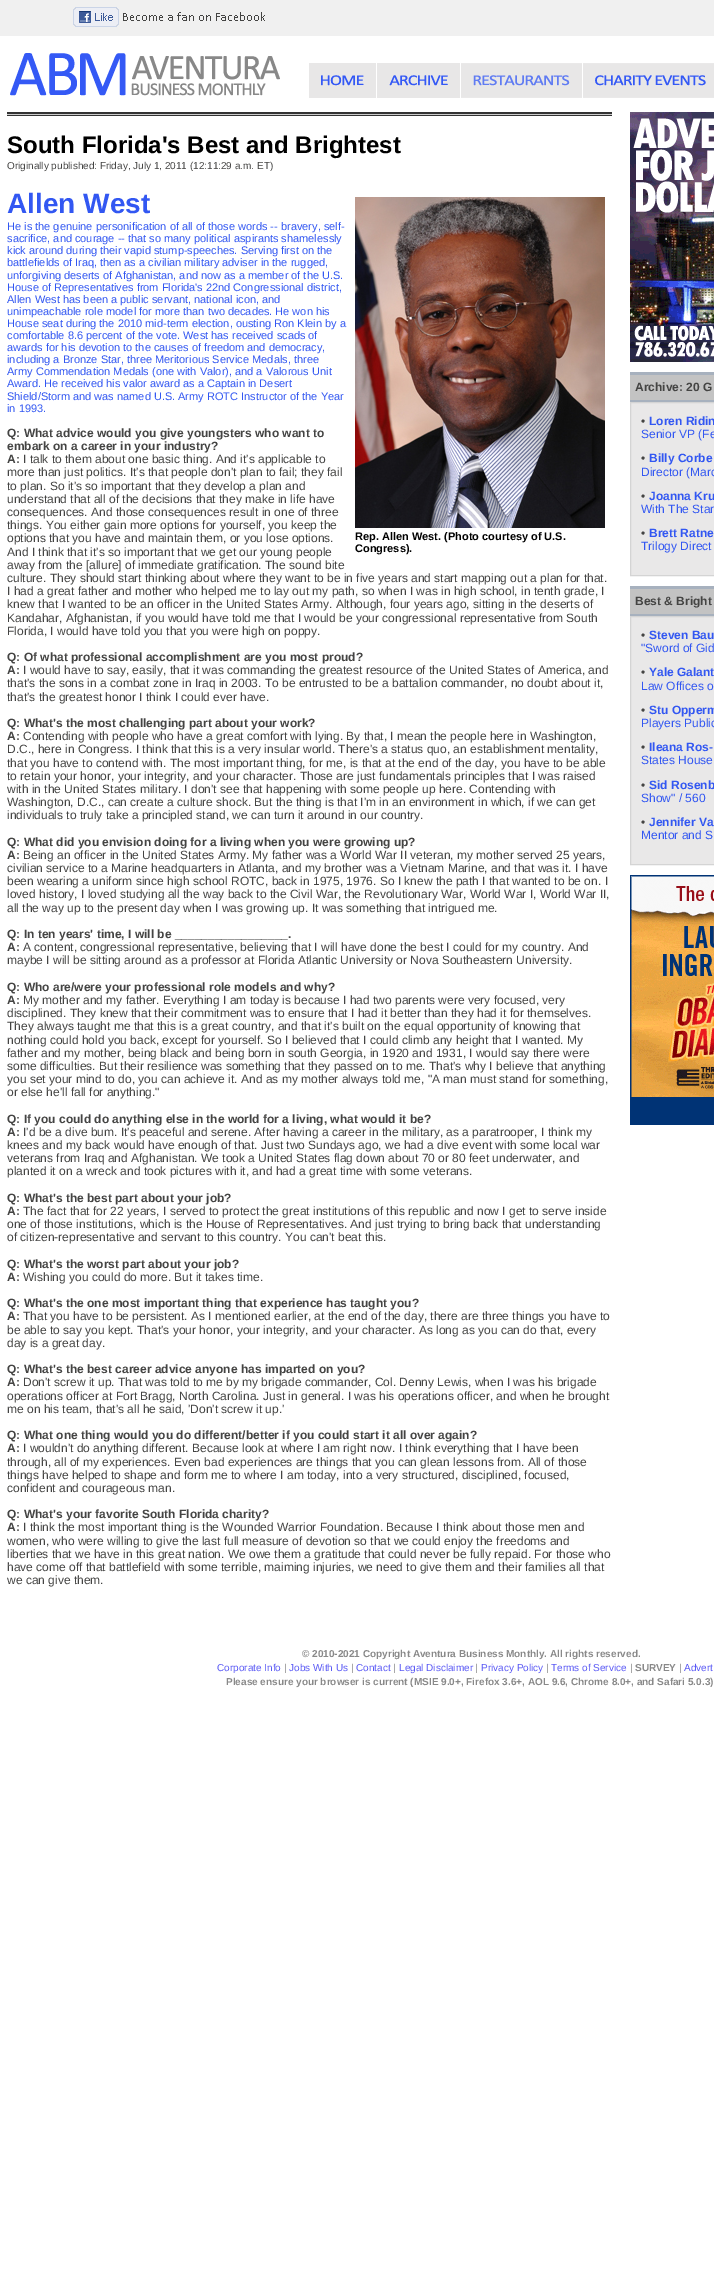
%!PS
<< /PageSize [714 2289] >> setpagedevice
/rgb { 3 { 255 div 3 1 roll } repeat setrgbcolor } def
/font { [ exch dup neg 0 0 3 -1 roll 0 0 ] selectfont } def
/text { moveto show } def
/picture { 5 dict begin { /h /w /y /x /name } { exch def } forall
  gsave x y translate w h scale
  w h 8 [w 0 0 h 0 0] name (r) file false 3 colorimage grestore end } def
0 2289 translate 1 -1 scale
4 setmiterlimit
255 255 255 rgb
0 0 714 2289 rectfill
240 240 240 rgb
0 0 714 36 rectfill
(img_01.rgb) 73 7 192 20 picture
(img_02.rgb) 10 53 270 43 picture
(img_03.rgb) 309 63 67 35 picture
(img_04.rgb) 377 63 83 35 picture
(img_05.rgb) 461 63 121 35 picture
(img_06.rgb) 583 63 131 35 picture
(img_07.rgb) 7 112 605 4 picture
(img_08.rgb) 355 197 250 331 picture
(img_09.rgb) 630 112 84 250 picture
167 177 190 rgb
630 372 84 3 rectfill
195 195 195 rgb
630 375 84 25 rectfill
167 177 190 rgb
630 400 84 2 rectfill
233 232 232 rgb
630.5 402.5 moveto 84 0 rlineto 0 173 rlineto -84 0 rlineto closepath gsave fill grestore
212 212 212 rgb
stroke
167 177 190 rgb
630 586 84 3 rectfill
195 195 195 rgb
630 589 84 25 rectfill
167 177 190 rgb
630 614 84 2 rectfill
233 232 232 rgb
630.5 616.5 moveto 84 0 rlineto 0 248 rlineto -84 0 rlineto closepath gsave fill grestore
212 212 212 rgb
stroke
(img_10.rgb) 630 875 84 250 picture
/LiberationSans-Bold 24 font
0 0 0 rgb
(South Florida's Best and Brightest) 7 153 text
/LiberationSans-Regular 10 font
68 68 67 rgb
(Originally published: Friday, July 1, 2011 \(12:11:29 a.m. ET\)) 7 169 text
/LiberationSans-Bold 28 font
50 87 242 rgb
(Allen West) 7 213 text
/LiberationSans-Regular 11 font
(He is the genuine personification of all of those words -- bravery, self-) 7 230 text
(sacrifice, and courage -- that so many political aspirants shamelessly) 7 242 text
(kick around during their vapid stump-speeches. Serving first on the) 7 254 text
(battlefields of Iraq, then as a civilian military adviser in the rugged,) 7 266 text
(unforgiving deserts of Afghanistan, and now as a member of the U.S.) 7 279 text
(House of Representatives from Florida's 22nd Congressional district,) 7 291 text
(Allen West has been a public servant, national icon, and) 7 303 text
(unimpeachable role model for more than two decades. He won his) 7 315 text
(House seat during the 2010 mid-term election, ousting Ron Klein by a) 7 327 text
(comfortable 8.6 percent of the vote. West has received scads of) 7 339 text
(awards for his devotion to the causes of freedom and democracy,) 7 351 text
(including a Bronze Star, three Meritorious Service Medals, three) 7 363 text
(Army Commendation Medals \(one with Valor\), and a Valorous Unit) 7 375 text
(Award. He received his valor award as a Captain in Desert) 7 387 text
(Shield/Storm and was named U.S. Army ROTC Instructor of the Year) 7 400 text
(in 1993.) 7 412 text
/LiberationSans-Bold 12 font
68 68 67 rgb
(Q: What advice would you give youngsters who want to) 7 437 text
(embark on a career in your industry?) 7 450 text
(A:) 7 463 text
/LiberationSans-Regular 12 font
(I talk to them about one basic thing. And it's applicable to) 23 463 text
(more than just politics. It's that people don't plan to fail; they fail) 7 476 text
(to plan. So it's so important that they develop a plan and) 7 490 text
(understand that all of the decisions that they make in life have) 7 503 text
(consequences. And those consequences result in one of three) 7 516 text
(things. You either gain more options for yourself, you keep the) 7 529 text
(options that you have and maintain them, or you lose options.) 7 542 text
/LiberationSans-Bold 11 font
0 0 0 rgb
(Rep. Allen West. \(Photo courtesy of U.S.) 355 540 text
(Congress\).) 355 552 text
/LiberationSans-Regular 12 font
68 68 67 rgb
(And I think that it's so important that we get our young people) 7 556 text
(away from the [allure] of immediate gratification. The sound bite) 7 569 text
(culture. They should start thinking about where they want to be in five years and start mapping out a plan for that.) 7 582 text
(I had a great father and mother who helped me to lay out my path, so when I was in high school, in tenth grade, I) 7 595 text
(knew that I wanted to be an officer in the United States Army. Although, four years ago, sitting in the deserts of) 7 608 text
(Kandahar, Afghanistan, if you would have told me that I would be your congressional representative from South) 7 622 text
(Florida, I would have told you that you were high on poppy.) 7 635 text
/LiberationSans-Bold 12 font
(Q: Of what professional accomplishment are you most proud?) 7 661 text
(A:) 7 674 text
/LiberationSans-Regular 12 font
(I would have to say, easily, that it was commanding the greatest resource of the United States of America, and) 23 674 text
(that's the sons in a combat zone in Iraq in 2003. To be entrusted to be a battalion commander, no doubt about it,) 7 687 text
(that's the greatest honor I think I could ever have.) 7 701 text
/LiberationSans-Bold 12 font
(Q: What's the most challenging part about your work?) 7 727 text
(A:) 7 740 text
/LiberationSans-Regular 12 font
(Contending with people who have a great comfort with lying. By that, I mean the people here in Washington,) 23 740 text
(D.C., here in Congress. I think that this is a very insular world. There's a status quo, an establishment mentality,) 7 753 text
(that you have to contend with. The most important thing, for me, is that at the end of the day, you have to be able) 7 767 text
(to retain your honor, your integrity, and your character. Those are just fundamentals principles that I was raised) 7 780 text
(with in the United States military. I don't see that happening with some people up here. Contending with) 7 793 text
(Washington, D.C., can create a culture shock. But the thing is that I'm in an environment in which, if we can get) 7 806 text
(individuals to truly take a principled stand, we can turn it around in our country.) 7 819 text
/LiberationSans-Bold 12 font
(Q: What did you envision doing for a living when you were growing up?) 7 846 text
(A:) 7 859 text
/LiberationSans-Regular 12 font
(Being an officer in the United States Army. My father was a World War II veteran, my mother served 25 years,) 23 859 text
(civilian service to a Marine headquarters in Atlanta, and my brother was a Vietnam Marine, and that was it. I have) 7 872 text
(been wearing a uniform since high school ROTC, back in 1975, 1976. So I knew the path I that wanted to be on. I) 7 885 text
(loved history, I loved studying all the way back to the Civil War, the Revolutionary War, World War I, World War II,) 7 898 text
(all the way up to the present day when I was growing up. It was something that intrigued me.) 7 912 text
/LiberationSans-Bold 12 font
(Q: In ten years' time, I will be _________________.) 7 938 text
(A:) 7 951 text
/LiberationSans-Regular 12 font
(A content, congressional representative, believing that I will have done the best I could for my country. And) 23 951 text
(maybe I will be sitting around as a professor at Florida Atlantic University or Nova Southeastern University.) 7 964 text
/LiberationSans-Bold 12 font
(Q: Who are/were your professional role models and why?) 7 991 text
(A:) 7 1004 text
/LiberationSans-Regular 12 font
(My mother and my father. Everything I am today is because I had two parents were very focused, very) 23 1004 text
(disciplined. They knew that their commitment was to ensure that I had it better than they had it for themselves.) 7 1017 text
(They always taught me that this is a great country, and that it's built on the equal opportunity of knowing that) 7 1030 text
(nothing could hold you back, except for yourself. So I believed that I could climb any height that I wanted. My) 7 1044 text
(father and my mother, being black and being born in south Georgia, in 1920 and 1931, I would say there were) 7 1057 text
(some difficulties. But their resilience was something that they passed on to me. That's why I believe that anything) 7 1070 text
(you set your mind to do, you can achieve it. And as my mother always told me, "A man must stand for something,) 7 1083 text
(or else he'll fall for anything.") 7 1096 text
/LiberationSans-Bold 12 font
(Q: If you could do anything else in the world for a living, what would it be?) 7 1123 text
(A:) 7 1136 text
/LiberationSans-Regular 12 font
(I'd be a dive bum. It's peaceful and serene. After having a career in the military, as a paratrooper, I think my) 23 1136 text
(knees and my back would have enough of that. Just two Sundays ago, we had a dive event with some local war) 7 1149 text
(veterans from Iraq and Afghanistan. We took a United States flag down about 70 or 80 feet underwater, and) 7 1162 text
(planted it on a wreck and took pictures with it, and had a great time with some veterans.) 7 1175 text
/LiberationSans-Bold 12 font
(Q: What's the best part about your job?) 7 1202 text
(A:) 7 1215 text
/LiberationSans-Regular 12 font
(The fact that for 22 years, I served to protect the great institutions of this republic and now I get to serve inside) 23 1215 text
(one of those institutions, which is the House of Representatives. And just trying to bring back that understanding) 7 1228 text
(of citizen-representative and servant to this country. You can't beat this.) 7 1241 text
/LiberationSans-Bold 12 font
(Q: What's the worst part about your job?) 7 1268 text
(A:) 7 1281 text
/LiberationSans-Regular 12 font
(Wishing you could do more. But it takes time.) 23 1281 text
/LiberationSans-Bold 12 font
(Q: What's the one most important thing that experience has taught you?) 7 1307 text
(A:) 7 1320 text
/LiberationSans-Regular 12 font
(That you have to be persistent. As I mentioned earlier, at the end of the day, there are three things you have to) 23 1320 text
(be able to say you kept. That's your honor, your integrity, and your character. As long as you can do that, every) 7 1334 text
(day is a great day.) 7 1347 text
/LiberationSans-Bold 12 font
(Q: What's the best career advice anyone has imparted on you?) 7 1373 text
(A:) 7 1386 text
/LiberationSans-Regular 12 font
(Don't screw it up. That was told to me by my brigade commander, Col. Denny Lewis, when I was his brigade) 23 1386 text
(operations officer at Fort Bragg, North Carolina. Just in general. I was his operations officer, and when he brought) 7 1400 text
(me on his team, that's all he said, 'Don't screw it up.') 7 1413 text
/LiberationSans-Bold 12 font
(Q: What one thing would you do different/better if you could start it all over again?) 7 1439 text
(A:) 7 1452 text
/LiberationSans-Regular 12 font
(I wouldn't do anything different. Because look at where I am right now. I think everything that I have been) 23 1452 text
(through, all of my experiences. Even bad experiences are things that you can glean lessons from. All of those) 7 1466 text
(things have helped to shape and form me to where I am today, into a very structured, disciplined, focused,) 7 1479 text
(confident and courageous man.) 7 1492 text
/LiberationSans-Bold 12 font
(Q: What's your favorite South Florida charity?) 7 1518 text
(A:) 7 1531 text
/LiberationSans-Regular 12 font
(I think the most important thing is the Wounded Warrior Foundation. Because I think about those men and) 23 1531 text
(women, who were willing to give the last full measure of devotion so that we could enjoy the freedoms and) 7 1545 text
(liberties that we have in this great nation. We owe them a gratitude that could never be fully repaid. For those who) 7 1558 text
(have come off that battlefield with some terrible, maiming injuries, we need to give them and their families all that) 7 1571 text
(we can give them.) 7 1584 text
/LiberationSans-Bold 12 font
(Archive: 20 G) 635 391 text
/LiberationSans-Regular 12 font
(•) 641 425 text
/LiberationSans-Bold 12 font
50 87 242 rgb
(Loren Ridin) 649 425 text
/LiberationSans-Regular 12 font
(Senior VP \(Fe) 641 438 text
68 68 67 rgb
(•) 641 462 text
/LiberationSans-Bold 12 font
50 87 242 rgb
(Billy Corbe) 649 462 text
/LiberationSans-Regular 12 font
(Director \(Marc) 641 476 text
68 68 67 rgb
(•) 641 500 text
/LiberationSans-Bold 12 font
50 87 242 rgb
(Joanna Kru) 649 500 text
/LiberationSans-Regular 12 font
(With The Star) 641 513 text
68 68 67 rgb
(•) 641 537 text
/LiberationSans-Bold 12 font
50 87 242 rgb
(Brett Ratne) 649 537 text
/LiberationSans-Regular 12 font
(Trilogy Direct) 641 550 text
/LiberationSans-Bold 12 font
68 68 67 rgb
(Best & Bright) 635 605 text
/LiberationSans-Regular 12 font
(•) 641 639 text
/LiberationSans-Bold 12 font
50 87 242 rgb
(Steven Bau) 649 639 text
/LiberationSans-Regular 12 font
("Sword of Gid) 641 652 text
68 68 67 rgb
(•) 641 676 text
/LiberationSans-Bold 12 font
50 87 242 rgb
(Yale Galant) 649 676 text
/LiberationSans-Regular 12 font
(Law Offices o) 641 690 text
68 68 67 rgb
(•) 641 714 text
/LiberationSans-Bold 12 font
50 87 242 rgb
(Stu Opperm) 649 714 text
/LiberationSans-Regular 12 font
(Players Public) 641 727 text
68 68 67 rgb
(•) 641 751 text
/LiberationSans-Bold 12 font
50 87 242 rgb
(Ileana Ros-) 649 751 text
/LiberationSans-Regular 12 font
(States House) 641 764 text
68 68 67 rgb
(•) 641 789 text
/LiberationSans-Bold 12 font
50 87 242 rgb
(Sid Rosenb) 649 789 text
/LiberationSans-Regular 12 font
(Show" / 560) 641 802 text
68 68 67 rgb
(•) 641 826 text
/LiberationSans-Bold 12 font
50 87 242 rgb
(Jennifer Va) 649 826 text
/LiberationSans-Regular 12 font
(Mentor and S) 641 839 text
/LiberationSans-Bold 10 font
137 137 137 rgb
(© 2010-2021 Copyright Aventura Business Monthly. All rights reserved.) 302 1657 text
/LiberationSans-Regular 10 font
90 89 245 rgb
(Corporate Info) 217 1671 text
137 137 137 rgb
(|) 284 1671 text
90 89 245 rgb
(Jobs With Us) 289 1671 text
137 137 137 rgb
(|) 351 1671 text
90 89 245 rgb
(Contact) 356 1671 text
137 137 137 rgb
(|) 393 1671 text
90 89 245 rgb
(Legal Disclaimer) 399 1671 text
137 137 137 rgb
(|) 475 1671 text
90 89 245 rgb
(Privacy Policy) 481 1671 text
137 137 137 rgb
(|) 546 1671 text
90 89 245 rgb
(Terms of Service) 551 1671 text
137 137 137 rgb
(|) 630 1671 text
/LiberationSans-Bold 10 font
(SURVEY) 635 1671 text
/LiberationSans-Regular 10 font
(|) 679 1671 text
90 89 245 rgb
(Advert) 684 1671 text
/LiberationSans-Bold 10 font
137 137 137 rgb
(Please ensure your browser is current \(MSIE 9.0+, Firefox 3.6+, AOL 9.6, Chrome 8.0+, and Safari 5.0.3\)) 226 1685 text
showpage
